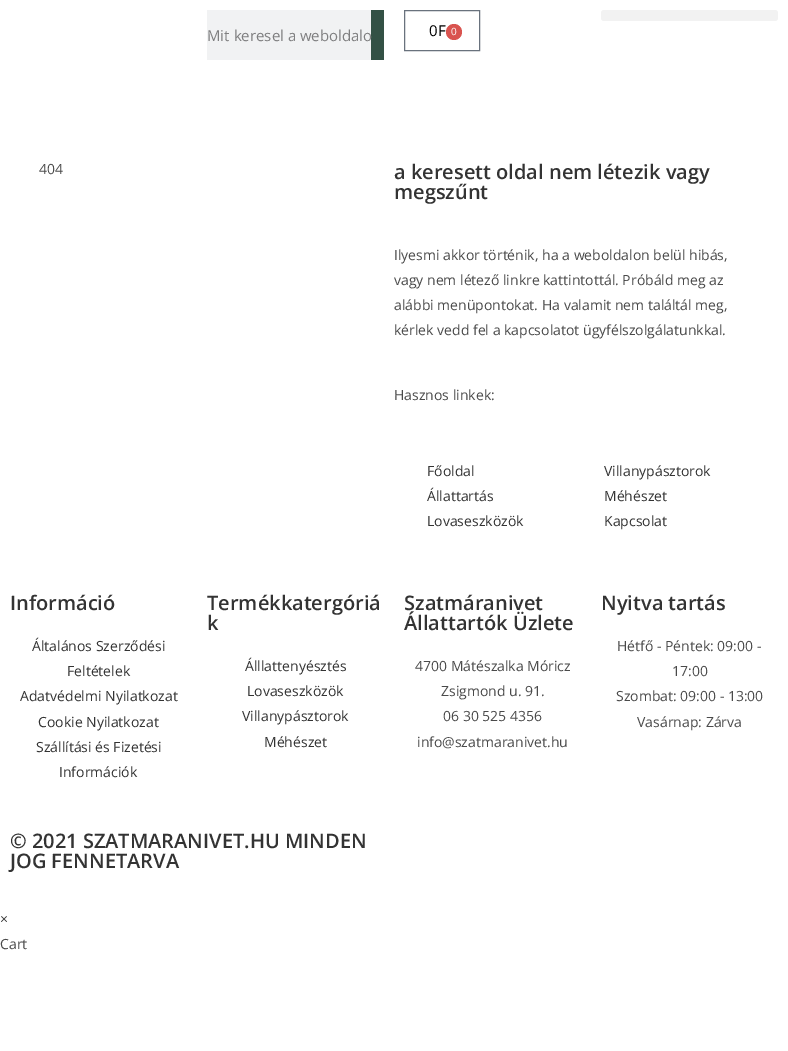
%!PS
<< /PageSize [788 1051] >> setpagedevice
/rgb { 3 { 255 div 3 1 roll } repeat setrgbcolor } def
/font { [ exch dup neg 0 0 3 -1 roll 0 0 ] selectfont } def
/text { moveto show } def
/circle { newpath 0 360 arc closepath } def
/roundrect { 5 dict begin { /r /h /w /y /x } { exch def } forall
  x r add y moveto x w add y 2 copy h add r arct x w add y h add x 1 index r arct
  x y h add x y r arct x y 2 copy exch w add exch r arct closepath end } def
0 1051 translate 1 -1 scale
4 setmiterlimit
255 255 255 rgb
0 0 788 1051 rectfill
242 242 242 rgb
601 10 177 11 3 roundrect fill
241 242 243 rgb
207 10 164 50 rectfill
51 81 69 rgb
371 10 13 50 rectfill
105 114 125 rgb
404.5 10.5 75 40 rectstroke
217 83 79 rgb
454 32 8 circle fill
/OpenSans-Regular 15 font
127 127 128 rgb
(Mit keresel a weboldalo) 207 41 text
0 0 0 rgb
(0F) 429 36 text
/OpenSans-Regular 10 font
255 255 255 rgb
(0) 451 35 text
/OpenSans-Regular 14 font
74 74 74 rgb
(404) 39 174 text
/OpenSans-SemiBold 20 font
51 51 51 rgb
(a keresett oldal nem létezik vagy) 394 179 text
(megszűnt) 394 199 text
/OpenSans-Regular 14 font
74 74 74 rgb
(Ilyesmi akkor történik, ha a weboldalon belül hibás,) 394 260 text
(vagy nem létező linkre kattintottál. Próbáld meg az) 394 285 text
(alábbi menüpontokat. Ha valamit nem találtál meg,) 394 310 text
(kérlek vedd fel a kapcsolatot ügyfélszolgálatunkkal.) 394 335 text
(Hasznos linkek:) 394 400 text
51 51 51 rgb
(Főoldal) 427 476 text
(Állattartás) 427 501 text
(Lovaseszközök) 427 526 text
(Villanypásztorok) 604 476 text
(Méhészet) 604 501 text
(Kapcsolat) 604 526 text
/OpenSans-SemiBold 20 font
(Információ) 10 610 text
/OpenSans-Regular 14 font
(Általános Szerződési) 32 651 text
(Feltételek) 67 676 text
(Adatvédelmi Nyilatkozat) 20 701 text
(Cookie Nyilatkozat) 38 727 text
(Szállítási és Fizetési) 36 752 text
(Információk) 59 777 text
/OpenSans-SemiBold 20 font
(Termékkatergóriá) 207 610 text
(k) 207 630 text
/OpenSans-Regular 14 font
(Álllattenyésztés) 245 671 text
(Lovaseszközök) 247 696 text
(Villanypásztorok) 242 721 text
(Méhészet) 264 747 text
/OpenSans-SemiBold 20 font
(Szatmáranivet) 404 610 text
(Állattartók Üzlete) 404 630 text
/OpenSans-Regular 14 font
74 74 74 rgb
(4700 Mátészalka Móricz) 415 671 text
(Zsigmond u. 91.) 441 696 text
(06 30 525 4356) 443 721 text
(info@szatmaranivet.hu) 417 747 text
/OpenSans-SemiBold 20 font
51 51 51 rgb
(Nyitva tartás) 601 610 text
/OpenSans-Regular 14 font
74 74 74 rgb
(Hétfő - Péntek: 09:00 -) 617 651 text
(17:00) 672 676 text
(Szombat: 09:00 - 13:00) 616 701 text
(Vasárnap: Zárva) 637 727 text
/OpenSans-SemiBold 20 font
51 51 51 rgb
(© 2021 SZATMARANIVET.HU MINDEN) 10 848 text
(JOG FENNETARVA) 10 868 text
/OpenSans-Regular 14 font
(×) 0 924 text
74 74 74 rgb
(Cart) 0 949 text
showpage
